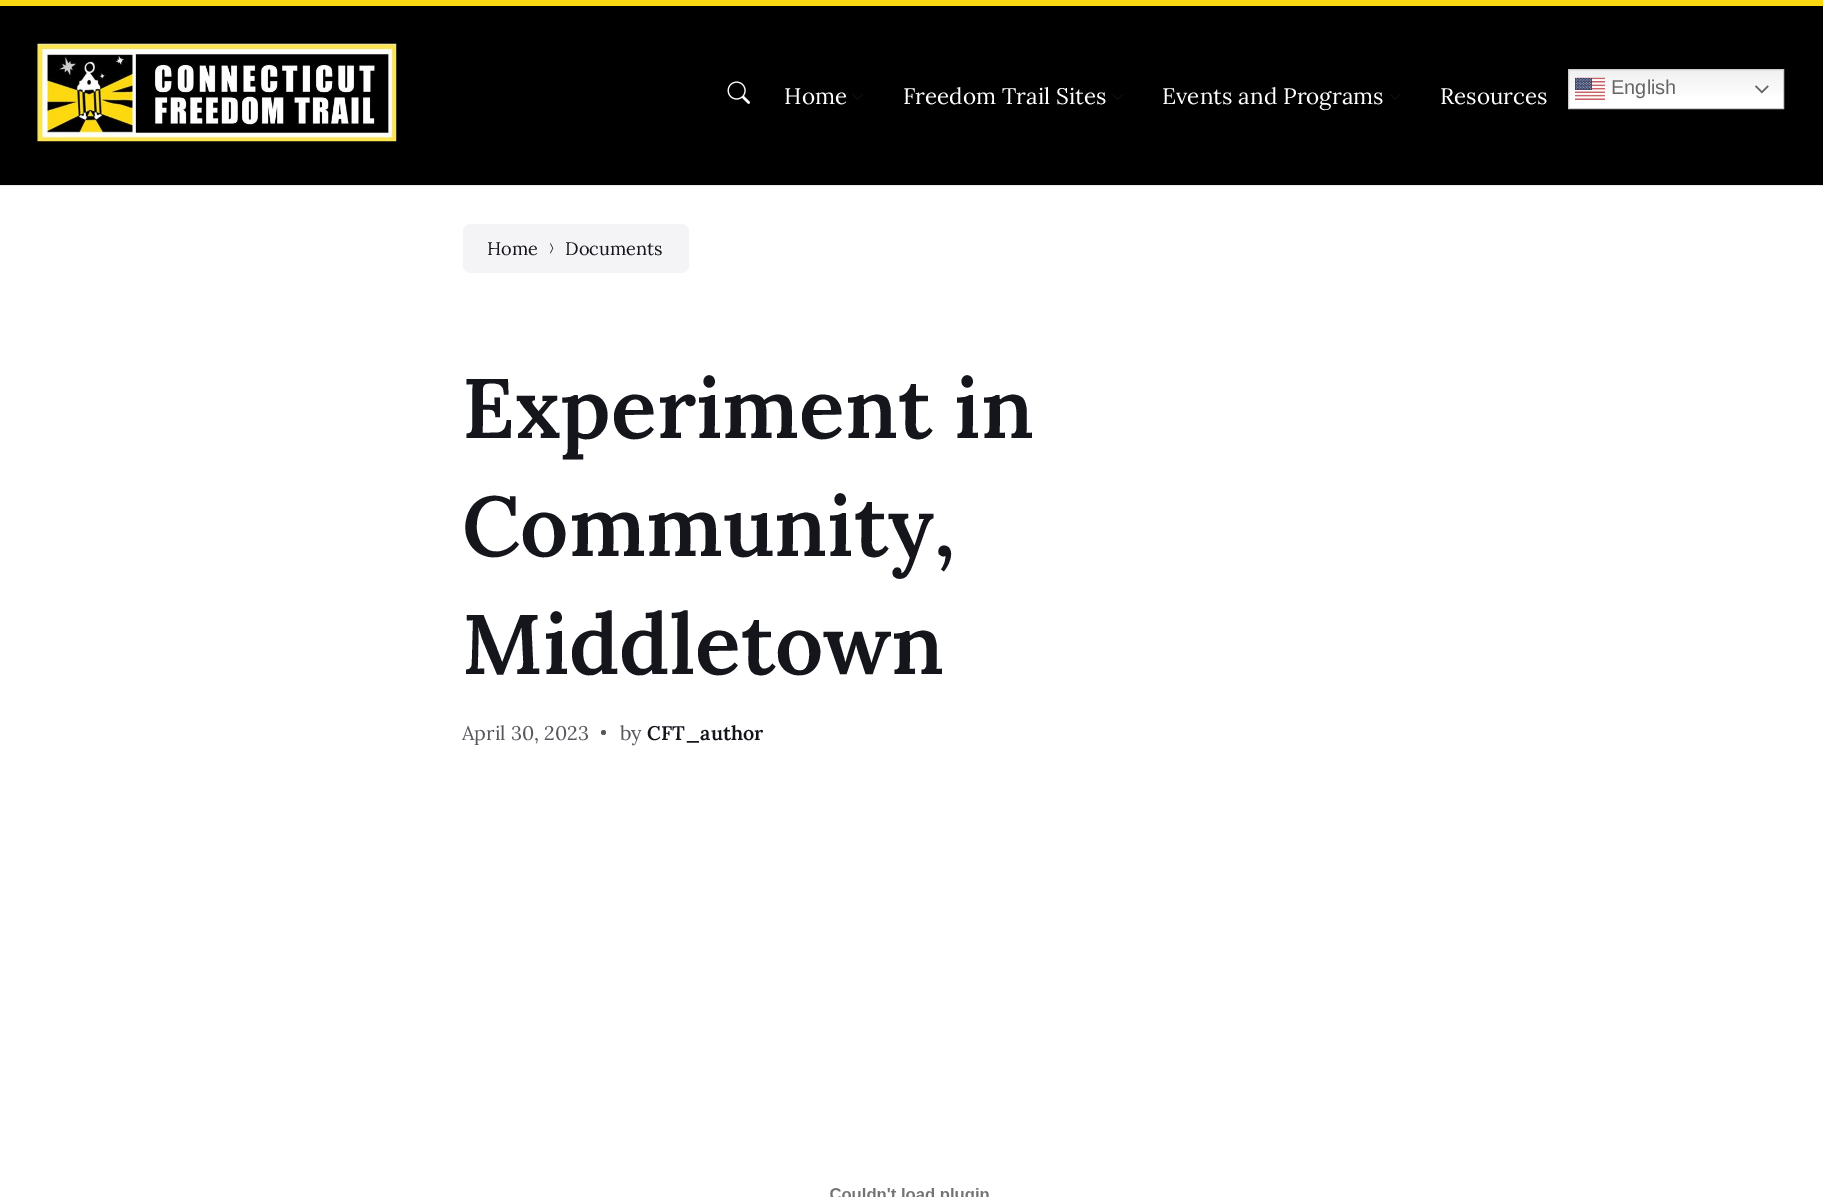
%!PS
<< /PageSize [1823 1197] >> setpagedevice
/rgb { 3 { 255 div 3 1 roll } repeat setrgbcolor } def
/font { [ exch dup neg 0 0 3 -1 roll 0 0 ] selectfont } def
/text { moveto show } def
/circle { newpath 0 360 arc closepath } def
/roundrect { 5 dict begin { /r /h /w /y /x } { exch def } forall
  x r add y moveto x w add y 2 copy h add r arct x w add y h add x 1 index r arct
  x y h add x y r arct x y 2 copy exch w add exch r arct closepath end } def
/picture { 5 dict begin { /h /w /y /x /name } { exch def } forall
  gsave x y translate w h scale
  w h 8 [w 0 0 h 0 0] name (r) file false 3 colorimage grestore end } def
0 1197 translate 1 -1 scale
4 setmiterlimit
255 255 255 rgb
0 0 1823 1197 rectfill
233 233 234 rgb
0 185 1823 1 rectfill
254 217 15 rgb
0 0 1823 6 rectfill
0 0 0 rgb
0 6 1823 179 rectfill
(img_01.rgb) 37 43 360 99 picture
(img_02.rgb) 727 81 23 23 picture
(img_03.rgb) 852 94 11 6 picture
(img_03.rgb) 1112 94 11 6 picture
(img_04.rgb) 1390 94 10 6 picture
gsave 1569 70 moveto 214 0 rlineto 0 38 rlineto -214 0 rlineto closepath clip newpath
<< /ShadingType 2 /ColorSpace /DeviceRGB /Coords [1676 69 1676 109] /Extend [true true] /Function << /FunctionType 3 /Domain [0 1] /Functions [<< /FunctionType 2 /Domain [0 1] /C0 [0.937 0.937 0.937] /C1 [1 1 1] /N 1 >> << /FunctionType 2 /Domain [0 1] /C0 [1 1 1] /C1 [1 1 1] /N 1 >>] /Bounds [0.7] /Encode [0 1 0 1] >> >> shfill grestore
204 204 204 rgb
1568.5 69.5 215 39 rectstroke
(img_05.rgb) 1575 77 30 23 picture
(img_06.rgb) 1755 85 14 9 picture
244 243 246 rgb
463 224 226 49 8 roundrect fill
(img_07.rgb) 550 243 4 11 picture
88 87 94 rgb
603.5 732.5 2.5 circle fill
(img_08.rgb) 830 1188 159 9 picture
/Lora-Regular 22.5 font
255 255 255 rgb
(Home) 784 104 text
(Freedom Trail Sites) 903 104 text
(Events and Programs) 1162 104 text
(Resources) 1440 104 text
/LiberationSans-Regular 20 font
102 102 102 rgb
(English) 1611 94 text
/Lora-Regular 18.25 font
20 22 28 rgb
(Home) 487 255 text
(Documents) 565 255 text
/Lora-SemiBold 84.5 font
(Experiment in) 462 438 text
(Community,) 462 556 text
(Middletown) 462 674 text
/Lora-Regular 19.75 font
88 87 94 rgb
(April 30, 2023) 462 740 text
(by) 620 740 text
/Lora-SemiBold 19.75 font
20 22 28 rgb
(CFT_author) 647 740 text
showpage
